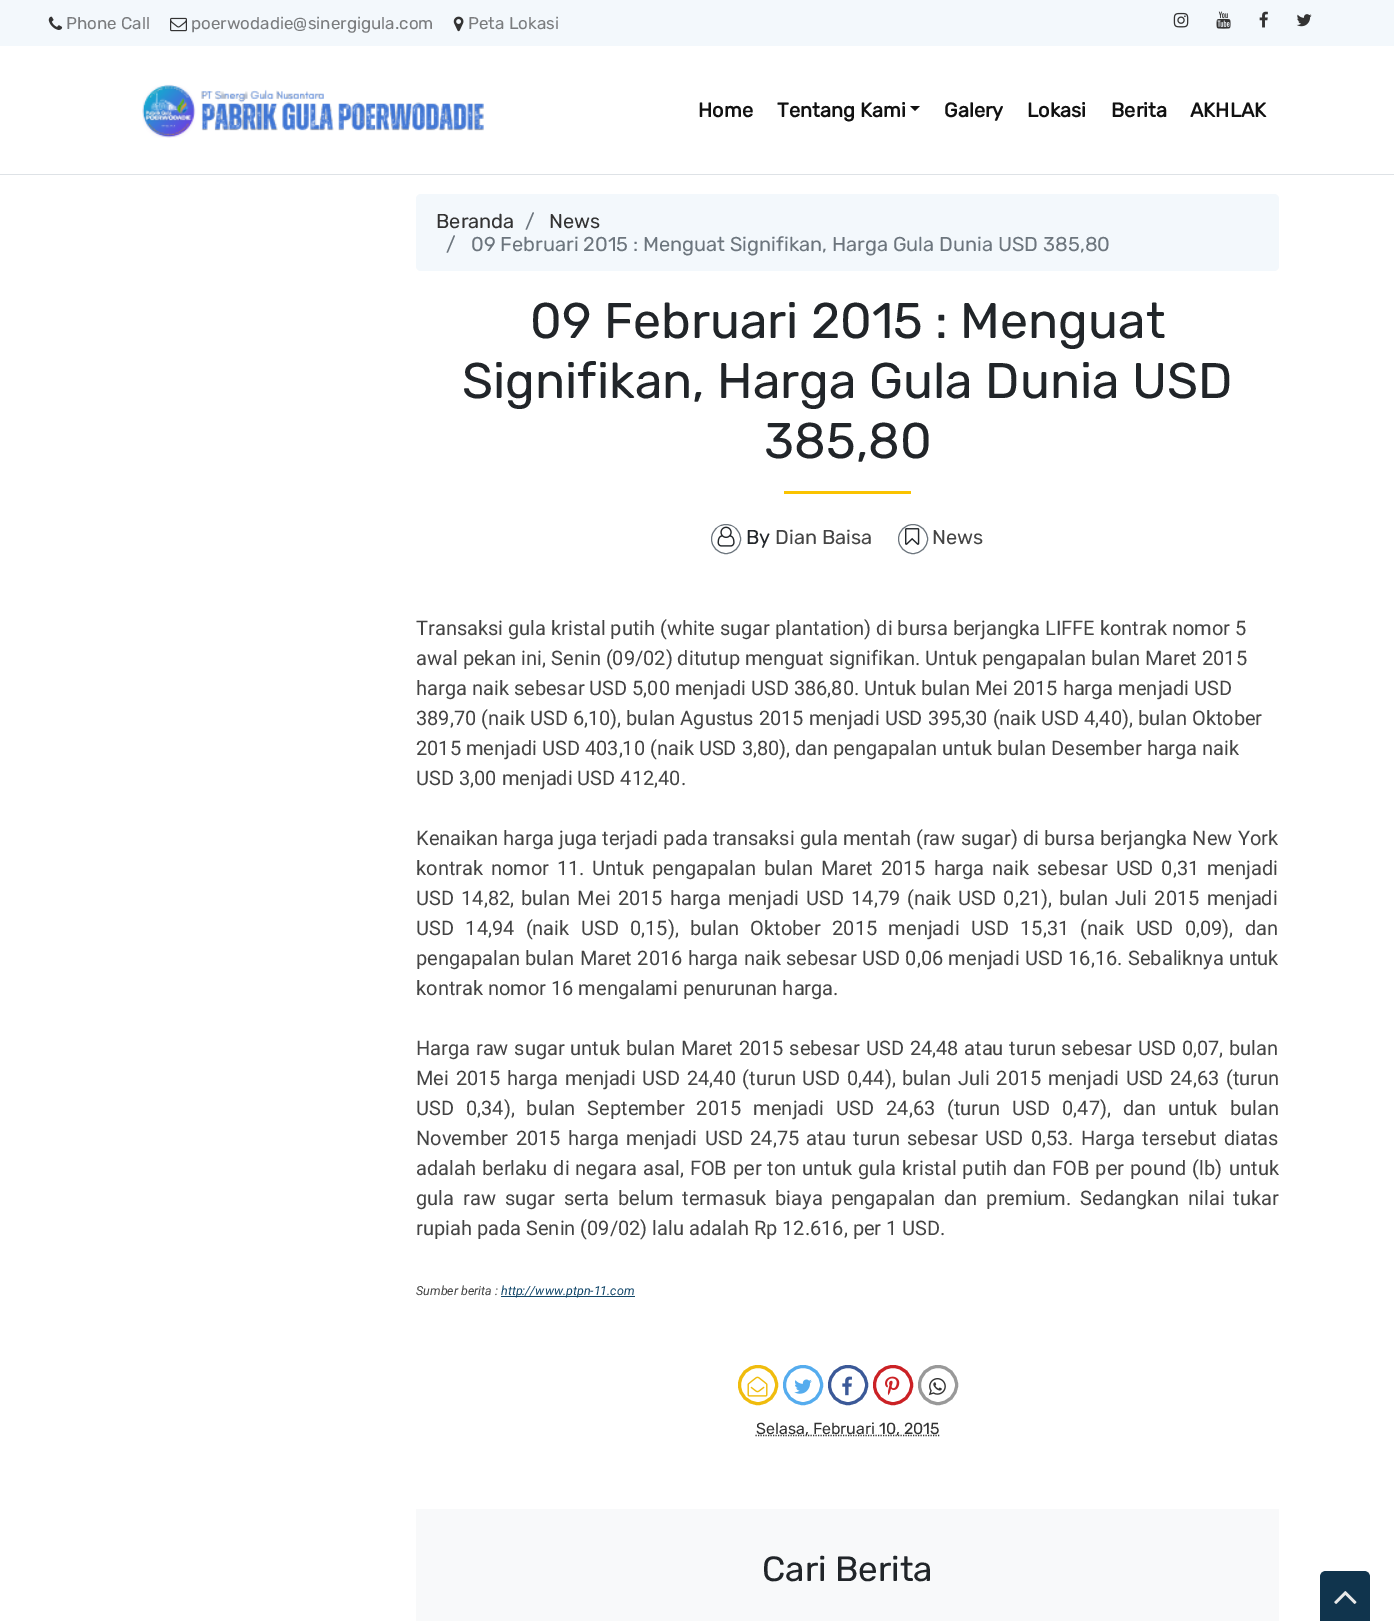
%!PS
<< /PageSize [1394 1621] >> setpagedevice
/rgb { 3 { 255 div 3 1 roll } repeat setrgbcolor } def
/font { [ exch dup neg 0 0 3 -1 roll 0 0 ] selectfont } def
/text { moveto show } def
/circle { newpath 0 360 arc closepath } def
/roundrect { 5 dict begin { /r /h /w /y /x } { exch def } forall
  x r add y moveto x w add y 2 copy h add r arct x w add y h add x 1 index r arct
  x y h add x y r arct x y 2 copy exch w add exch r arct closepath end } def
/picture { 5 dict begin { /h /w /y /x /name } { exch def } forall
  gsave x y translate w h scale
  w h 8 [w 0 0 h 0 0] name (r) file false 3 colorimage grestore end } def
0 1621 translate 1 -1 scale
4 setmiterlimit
255 255 255 rgb
0 0 1394 1621 rectfill
243 248 252 rgb
0 0 1394 46 rectfill
(img_01.rgb) 48 16 15 14 picture
(img_02.rgb) 170 17 17 15 picture
(img_03.rgb) 453 16 11 16 picture
(img_04.rgb) 1173 12 16 16 picture
(img_05.rgb) 1216 11 15 18 picture
(img_06.rgb) 1259 11 9 17 picture
(img_07.rgb) 1296 14 16 13 picture
222 226 230 rgb
0 174 1394 1 rectfill
(img_08.rgb) 142 84 342 54 picture
17 17 17 rgb
910 106 moveto 10 0 rlineto -5 5 rlineto closepath fill
243 248 252 rgb
416 194 863 77 5 roundrect fill
250 195 0 rgb
784 491 127 3 rectfill
108 117 125 rgb
726 539 14.5 circle stroke
(img_09.rgb) 717 526 18 21 picture
913 539 14.5 circle stroke
(img_10.rgb) 905 528 15 17 picture
17 70 105 rgb
501 1296 134 1 rectfill
240 188 13 rgb
3 setlinewidth
758 1385 18.5 circle stroke
(img_11.rgb) 747 1376 21 21 picture
85 172 238 rgb
803 1385 18.5 circle stroke
(img_12.rgb) 794 1379 18 15 picture
59 89 152 rgb
848 1385 18.5 circle stroke
(img_13.rgb) 842 1376 10 20 picture
203 33 37 rgb
893 1385 18.5 circle stroke
(img_14.rgb) 885 1376 15 20 picture
153 153 153 rgb
938 1385 18.5 circle stroke
(img_15.rgb) 928 1378 18 18 picture
51 51 51 rgb
1.2 setlinewidth
[1.25 1.25] 0 setdash
755.5 1435.5 moveto 184 0 rlineto stroke
248 249 250 rgb
416 1509 863 112 rectfill
16 52 77 rgb
1326 1571 moveto 38 0 rlineto 3.5 0 6 2.5 6 6 rcurveto 0 44 rlineto -50 0 rlineto 0 -44 rlineto 0 -3.5 2.5 -6 6 -6 rcurveto closepath fill
(img_16.rgb) 1334 1591 23 13 picture
/Rubik-Light 17 font
122 124 126 rgb
(Phone Call) 66 29 text
(poerwodadie@sinergigula.com) 191 29 text
(Peta Lokasi) 468 29 text
/Rubik-Bold 20 font
17 17 17 rgb
(Home) 698 117 text
(Tentang Kami) 777 117 text
(Galery) 944 117 text
(Lokasi) 1027 117 text
(Berita) 1111 117 text
(AKHLAK) 1190 117 text
/Rubik-Light 20 font
51 51 51 rgb
(Beranda) 436 228 text
108 117 125 rgb
(/) 525 228 text
51 51 51 rgb
(News) 549 228 text
108 117 125 rgb
(/) 446 251 text
(09 Februari 2015 : Menguat Signifikan, Harga Gula Dunia USD 385,80) 471 251 text
/Rubik-Light 50 font
33 37 41 rgb
(09 Februari 2015 : Menguat) 530 338 text
(Signifikan, Harga Gula Dunia USD) 462 398 text
(385,80) 764 458 text
/Rubik-Light 20 font
(By) 746 544 text
68 68 68 rgb
(Dian Baisa) 775 544 text
(News) 932 544 text
/Roboto-Regular 20 font
(Transaksi gula kristal putih \(white sugar plantation\) di bursa berjangka LIFFE kontrak nomor 5) 416 635 text
(awal pekan ini, Senin \(09/02\) ditutup menguat signifikan. Untuk pengapalan bulan Maret 2015) 416 665 text
(harga naik sebesar USD 5,00 menjadi USD 386,80. Untuk bulan Mei 2015 harga menjadi USD) 416 695 text
(389,70 \(naik USD 6,10\), bulan Agustus 2015 menjadi USD 395,30 \(naik USD 4,40\), bulan Oktober) 416 725 text
(2015 menjadi USD 403,10 \(naik USD 3,80\), dan pengapalan untuk bulan Desember harga naik) 416 755 text
(USD 3,00 menjadi USD 412,40.) 416 785 text
416 845 moveto 0.25 0 32 (Kenaikan harga juga terjadi pada transaksi gula mentah \(raw sugar\) di bursa berjangka New York) widthshow
416 875 moveto 2.9 0 32 (kontrak nomor 11. Untuk pengapalan bulan Maret 2015 harga naik sebesar USD 0,31 menjadi) widthshow
416 905 moveto 2.25 0 32 (USD 14,82, bulan Mei 2015 harga menjadi USD 14,79 \(naik USD 0,21\), bulan Juli 2015 menjadi) widthshow
416 935 moveto 6.4 0 32 (USD 14,94 \(naik USD 0,15\), bulan Oktober 2015 menjadi USD 15,31 \(naik USD 0,09\), dan) widthshow
416 965 moveto 0.4 0 32 (pengapalan bulan Maret 2016 harga naik sebesar USD 0,06 menjadi USD 16,16.) widthshow
(Sebaliknya untuk) 1128 965 text
(kontrak nomor 16 mengalami penurunan harga.) 416 995 text
416 1055 moveto 0.8 0 32 (Harga raw sugar untuk bulan Maret 2015 sebesar USD 24,48 atau turun sebesar USD 0,07, bulan) widthshow
416 1085 moveto 1.7 0 32 (Mei 2015 harga menjadi USD 24,40 \(turun USD 0,44\), bulan Juli 2015 menjadi USD 24,63 \(turun) widthshow
416 1115 moveto 7 0 32 (USD 0,34\), bulan September 2015 menjadi USD 24,63 \(turun USD 0,47\), dan untuk bulan) widthshow
416 1145 moveto 2.5 0 32 (November 2015 harga menjadi USD 24,75 atau turun sebesar USD 0,53.) widthshow
1081 1145 moveto 2.5 0 32 (Harga tersebut diatas) widthshow
416 1175 moveto 1 0 32 (adalah berlaku di negara asal, FOB per ton untuk gula kristal putih dan FOB per pound \(lb\)) widthshow
(untuk) 1229 1175 text
416 1205 moveto 4 0 32 (gula raw sugar) widthshow
564 1205 moveto 4 0 32 (serta belum termasuk biaya pengapalan dan premium. Sedangkan) widthshow
1188 1205 moveto 4 0 32 (nilai tukar) widthshow
(rupiah pada Senin \(09/02\) lalu adalah Rp 12.616, per 1 USD.) 416 1235 text
/Roboto-Italic 12.5 font
(Sumber berita :) 416 1295 text
17 70 105 rgb
(http://www.ptpn-11.com) 501 1295 text
/Rubik-Light 16 font
51 51 51 rgb
(Selasa, Februari 10, 2015) 756 1434 text
/Rubik-Light 35 font
33 37 41 rgb
(Cari Berita) 762 1581 text
showpage
